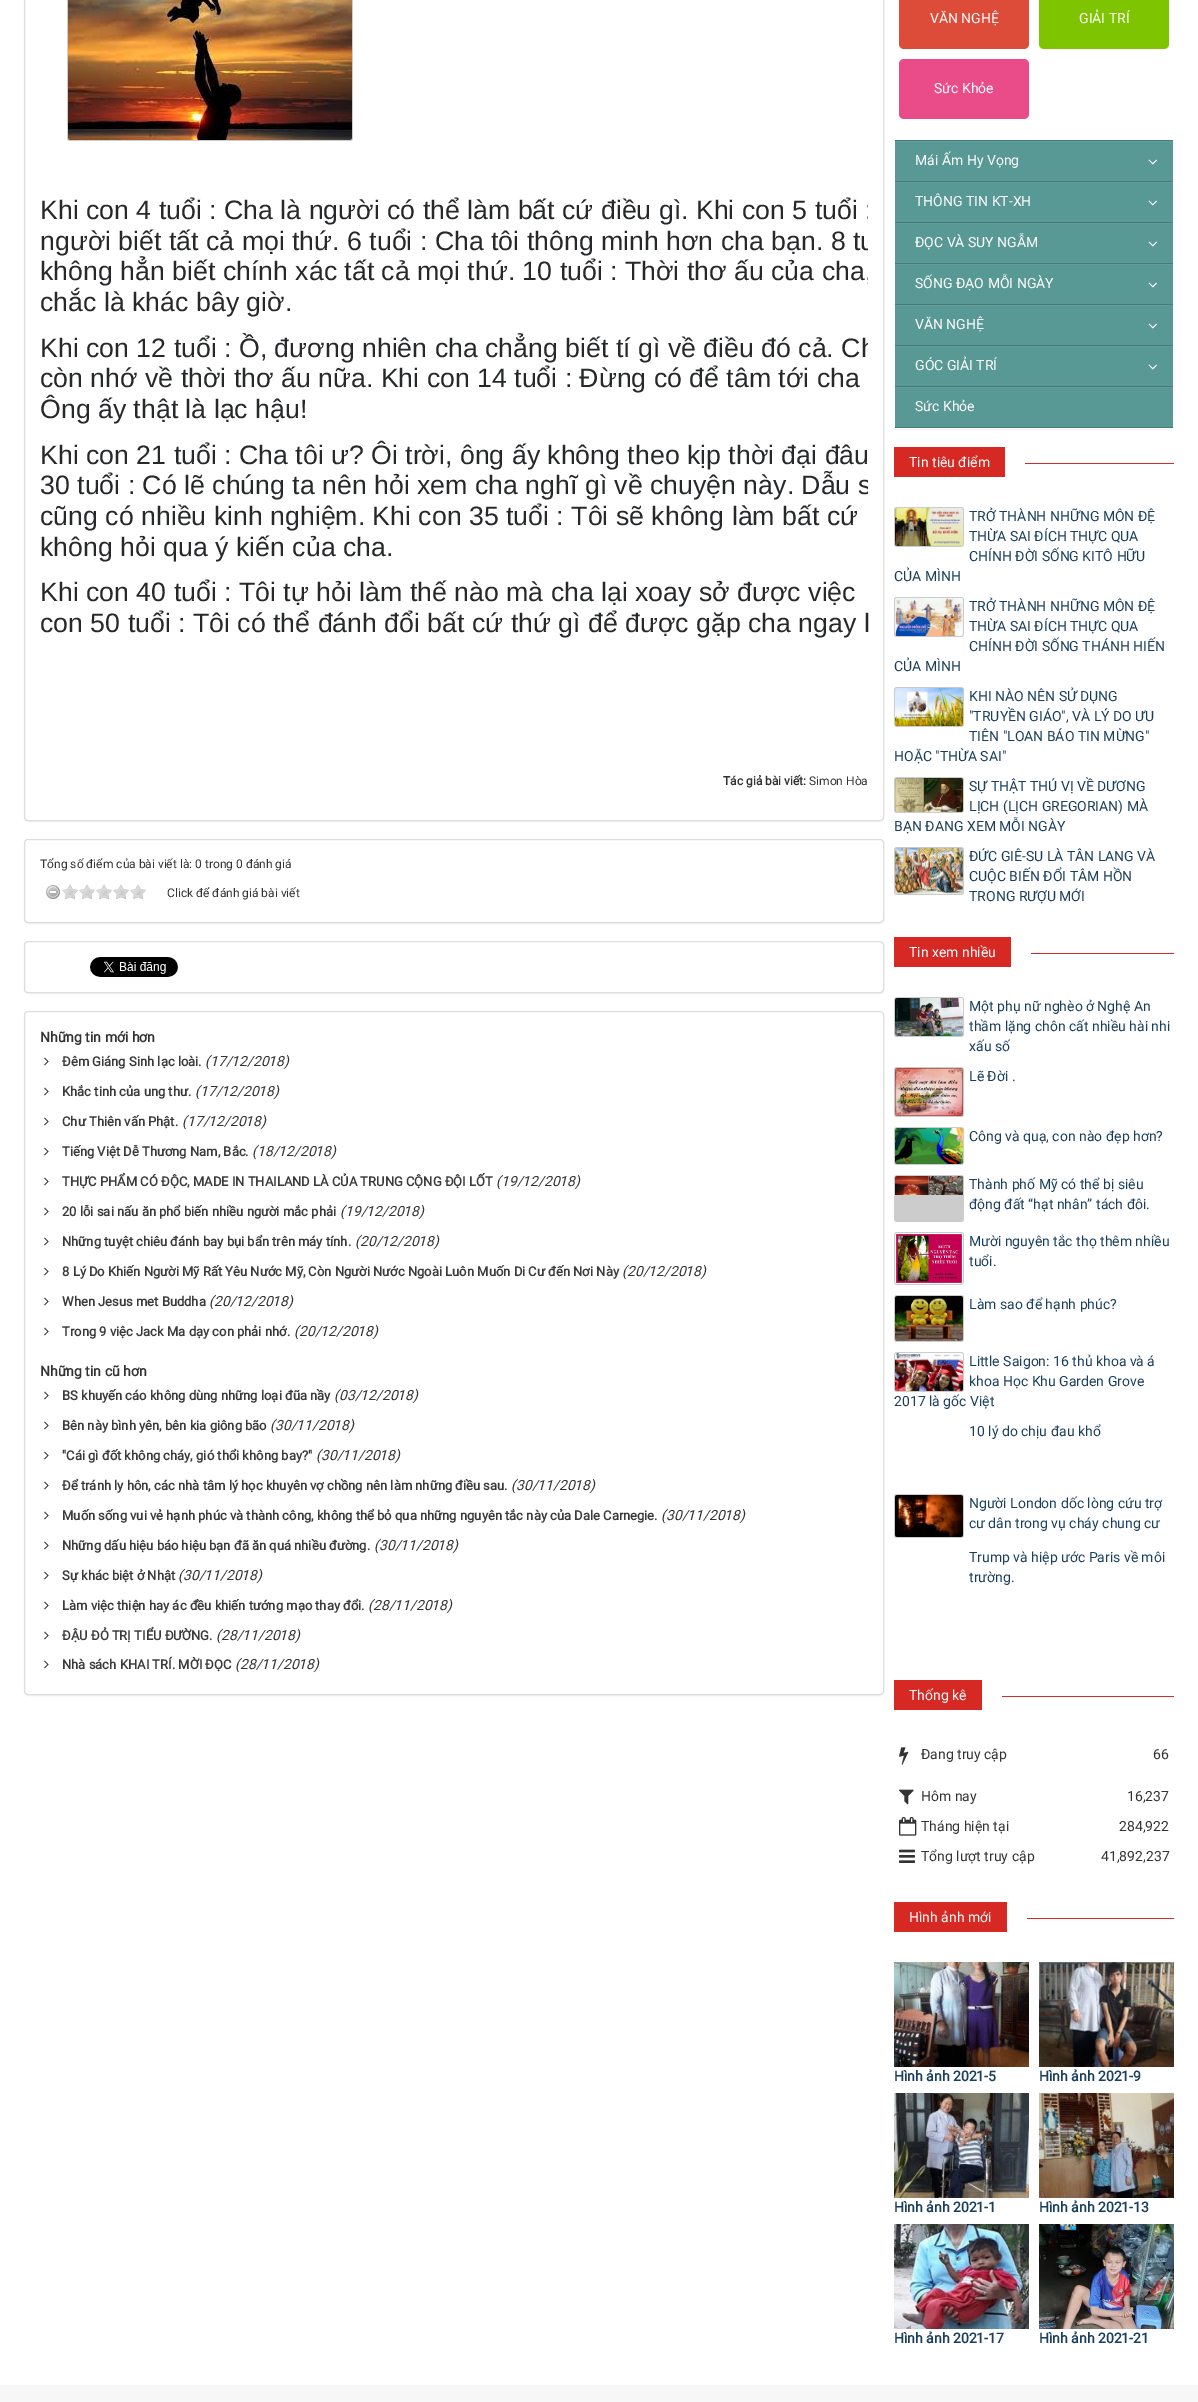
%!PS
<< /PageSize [1198 2402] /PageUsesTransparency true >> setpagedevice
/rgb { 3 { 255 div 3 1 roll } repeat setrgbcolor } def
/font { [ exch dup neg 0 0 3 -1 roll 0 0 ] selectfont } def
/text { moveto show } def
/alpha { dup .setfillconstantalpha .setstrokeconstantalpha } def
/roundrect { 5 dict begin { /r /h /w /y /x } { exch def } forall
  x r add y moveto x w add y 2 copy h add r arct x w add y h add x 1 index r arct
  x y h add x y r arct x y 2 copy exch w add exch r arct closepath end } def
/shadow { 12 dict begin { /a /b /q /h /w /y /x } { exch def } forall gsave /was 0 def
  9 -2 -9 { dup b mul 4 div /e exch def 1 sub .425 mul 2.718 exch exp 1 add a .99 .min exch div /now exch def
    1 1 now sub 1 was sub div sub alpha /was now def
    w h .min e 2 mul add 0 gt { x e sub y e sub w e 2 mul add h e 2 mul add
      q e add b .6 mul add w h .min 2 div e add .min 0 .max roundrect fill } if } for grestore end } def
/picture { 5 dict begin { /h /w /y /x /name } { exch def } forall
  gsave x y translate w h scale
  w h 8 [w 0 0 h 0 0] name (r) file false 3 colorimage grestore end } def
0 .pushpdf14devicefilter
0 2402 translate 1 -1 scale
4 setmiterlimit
255 255 255 rgb
0 0 1198 2402 rectfill
0 0 0 rgb
24 -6 860 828 4 0.5 0.05 shadow
255 255 255 rgb
24.5 -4.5 859 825 3.5 roundrect gsave fill grestore
221 221 221 rgb
stroke
204 204 204 rgb
67 -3 286 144 3 roundrect fill
(img_01.rgb) 68 0 284 140 picture
0 0 0 rgb
24 840 860 84 4 0.5 0.05 shadow
255 255 255 rgb
24.5 839.5 859 83 3.5 roundrect gsave fill grestore
221 221 221 rgb
stroke
(img_02.rgb) 46 885 14 14 picture
(img_03.rgb) 62 884 16 15 picture
(img_03.rgb) 79 884 16 15 picture
(img_03.rgb) 96 884 16 15 picture
(img_03.rgb) 113 884 16 15 picture
(img_03.rgb) 130 884 16 15 picture
0 0 0 rgb
24 942 860 52 4 0.5 0.05 shadow
255 255 255 rgb
24.5 941.5 859 51 3.5 roundrect gsave fill grestore
221 221 221 rgb
stroke
(img_04.rgb) 90 957 88 20 picture
0 0 0 rgb
24 1012 860 684 4 0.5 0.05 shadow
255 255 255 rgb
24.5 1011.5 859 683 3.5 roundrect gsave fill grestore
221 221 221 rgb
stroke
(img_05.rgb) 44 1057 5 9 picture
(img_05.rgb) 44 1087 5 9 picture
(img_05.rgb) 44 1117 5 9 picture
(img_05.rgb) 44 1147 5 9 picture
(img_05.rgb) 44 1177 5 9 picture
(img_05.rgb) 44 1207 5 9 picture
(img_05.rgb) 44 1237 5 9 picture
(img_05.rgb) 44 1267 5 9 picture
(img_05.rgb) 44 1297 5 9 picture
(img_05.rgb) 44 1327 5 9 picture
(img_05.rgb) 44 1391 5 9 picture
(img_05.rgb) 44 1421 5 9 picture
(img_05.rgb) 44 1451 5 9 picture
(img_05.rgb) 44 1481 5 9 picture
(img_05.rgb) 44 1511 5 9 picture
(img_05.rgb) 44 1541 5 9 picture
(img_05.rgb) 44 1571 5 9 picture
(img_05.rgb) 44 1601 5 9 picture
(img_05.rgb) 44 1631 5 9 picture
(img_05.rgb) 44 1660 5 9 picture
221 75 57 rgb
899 -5 130 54 5 roundrect fill
127 196 0 rgb
1039 -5 130 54 5 roundrect fill
234 76 137 rgb
899 59 130 60 5 roundrect fill
0 0 0 rgb
894 140 280 290 4 0.5 0.05 shadow
255 255 255 rgb
894 139 280 290 4 roundrect fill
89 153 149 rgb
895 142 278 285 rectfill
71 122 119 rgb
895 427 278 1 rectfill
97 158 154 rgb
895 141 278 1 rectfill
71 122 119 rgb
895 140 278 1 rectfill
(img_06.rgb) 1148 159 9 6 picture
97 158 154 rgb
895 182 278 1 rectfill
71 122 119 rgb
895 181 278 1 rectfill
(img_06.rgb) 1148 200 9 6 picture
97 158 154 rgb
895 223 278 1 rectfill
71 122 119 rgb
895 222 278 1 rectfill
(img_06.rgb) 1148 241 9 6 picture
97 158 154 rgb
895 264 278 1 rectfill
71 122 119 rgb
895 263 278 1 rectfill
(img_06.rgb) 1148 282 9 6 picture
97 158 154 rgb
895 305 278 1 rectfill
71 122 119 rgb
895 304 278 1 rectfill
(img_06.rgb) 1148 323 9 6 picture
97 158 154 rgb
895 346 278 1 rectfill
71 122 119 rgb
895 345 278 1 rectfill
(img_06.rgb) 1148 364 9 6 picture
97 158 154 rgb
895 387 278 1 rectfill
71 122 119 rgb
895 386 278 1 rectfill
215 41 36 rgb
894 447 111 30 rectfill
1025 463 149 1 rectfill
204 204 204 rgb
894 507 70 40 3 roundrect fill
(img_07.rgb) 895 508 68 38 picture
894 597 70 40 3 roundrect fill
(img_08.rgb) 895 598 68 38 picture
894 687 70 40 3 roundrect fill
(img_09.rgb) 895 688 68 38 picture
894 777 70 36 3 roundrect fill
(img_10.rgb) 895 778 68 34 picture
894 847 70 48 3 roundrect fill
(img_11.rgb) 895 848 68 46 picture
215 41 36 rgb
894 937 117 30 rectfill
1031 953 143 1 rectfill
204 204 204 rgb
894 997 70 40 3 roundrect fill
(img_12.rgb) 895 998 68 38 picture
894 1067 70 50 3 roundrect fill
(img_13.rgb) 895 1068 68 48 picture
894 1127 70 38 3 roundrect fill
(img_14.rgb) 895 1128 68 36 picture
894 1175 70 47 3 roundrect fill
(img_15.rgb) 895 1176 68 19 picture
894 1232 70 53 3 roundrect fill
(img_16.rgb) 895 1233 68 51 picture
894 1295 70 47 3 roundrect fill
(img_17.rgb) 895 1296 68 45 picture
894 1352 70 40 3 roundrect fill
(img_18.rgb) 895 1353 68 38 picture
894 1494 70 44 3 roundrect fill
(img_19.rgb) 895 1495 68 42 picture
215 41 36 rgb
894 1680 88 30 rectfill
1002 1696 172 1 rectfill
(img_20.rgb) 899 1747 10 18 picture
(img_21.rgb) 899 1789 15 16 picture
(img_22.rgb) 899 1817 18 19 picture
(img_23.rgb) 899 1849 16 14 picture
894 1902 113 30 rectfill
1027 1918 147 1 rectfill
(img_24.rgb) 894 1962 135 105 picture
(img_25.rgb) 1039 1962 135 105 picture
(img_26.rgb) 894 2093 135 105 picture
(img_27.rgb) 1039 2093 135 105 picture
(img_28.rgb) 894 2224 135 105 picture
(img_29.rgb) 1039 2224 135 105 picture
247 247 247 rgb
0 2385 1198 17 rectfill
gsave
40 165 828 488 rectclip
/LiberationSans-Regular 26.7 font
38 40 42 rgb
(Khi con 4 tuổi : Cha là người có thể làm bất cứ điều gì. Khi con 5 tuổi :) 40 219 text
(người biết tất cả mọi thứ. 6 tuổi : Cha tôi thông minh hơn cha bạn. 8 tu) 40 250 text
(không hẳn biết chính xác tất cả mọi thứ. 10 tuổi : Thời thơ ấu của cha,) 40 280 text
grestore
/LiberationSans-Regular 26.7 font
38 40 42 rgb
(chắc là khác bây giờ.) 40 311 text
gsave
40 165 828 488 rectclip
(Khi con 12 tuổi : Ồ, đương nhiên cha chẳng biết tí gì về điều đó cả. Ch) 40 357 text
grestore
(còn nhớ về thời thơ ấu nữa. Khi con 14 tuổi : Đừng có để tâm tới cha) 40 387 text
(Ông ấy thật là lạc hậu!) 40 418 text
(Khi con 21 tuổi : Cha tôi ư? Ôi trời, ông ấy không theo kịp thời đại đâu) 40 464 text
gsave
40 165 828 488 rectclip
(30 tuổi : Có lẽ chúng ta nên hỏi xem cha nghĩ gì về chuyện này. Dẫu s) 40 494 text
grestore
(cũng có nhiều kinh nghiệm. Khi con 35 tuổi : Tôi sẽ không làm bất cứ) 40 525 text
(không hỏi qua ý kiến của cha.) 40 556 text
(Khi con 40 tuổi : Tôi tự hỏi làm thế nào mà cha lại xoay sở được việc) 40 601 text
(con 50 tuổi : Tôi có thể đánh đổi bất cứ thứ gì để được gặp cha ngay l) 40 632 text
/Roboto-Bold 12 font
51 51 51 rgb
(Tác giả bài viết:) 723 785 text
/Roboto-Regular 12 font
(Simon Hòa) 809 785 text
(Tổng số điểm của bài viết là: 0 trong 0 đánh giá) 40 868 text
(Click để đánh giá bài viết) 167 897 text
/Roboto-Bold 14 font
(Những tin mới hơn) 40 1042 text
/Roboto-Bold 13 font
59 59 59 rgb
(Đêm Giáng Sinh lạc loài.) 62 1066 text
/Roboto-Italic 14 font
51 51 51 rgb
(\(17/12/2018\)) 205 1066 text
/Roboto-Bold 13 font
59 59 59 rgb
(Khắc tinh của ung thư.) 62 1096 text
/Roboto-Italic 14 font
51 51 51 rgb
(\(17/12/2018\)) 195 1096 text
/Roboto-Bold 13 font
59 59 59 rgb
(Chư Thiên vấn Phật.) 62 1126 text
/Roboto-Italic 14 font
51 51 51 rgb
(\(17/12/2018\)) 182 1126 text
/Roboto-Bold 13 font
59 59 59 rgb
(Tiếng Việt Dễ Thương Nam, Bắc.) 62 1156 text
/Roboto-Italic 14 font
51 51 51 rgb
(\(18/12/2018\)) 252 1156 text
/Roboto-Bold 13 font
59 59 59 rgb
(THỰC PHẨM CÓ ĐỘC, MADE IN THAILAND LÀ CỦA TRUNG CỘNG ĐỘI LỐT) 62 1186 text
/Roboto-Italic 14 font
51 51 51 rgb
(\(19/12/2018\)) 496 1186 text
/Roboto-Bold 13 font
59 59 59 rgb
(20 lỗi sai nấu ăn phổ biến nhiều người mắc phải) 62 1216 text
/Roboto-Italic 14 font
51 51 51 rgb
(\(19/12/2018\)) 340 1216 text
/Roboto-Bold 13 font
59 59 59 rgb
(Những tuyệt chiêu đánh bay bụi bẩn trên máy tính.) 62 1246 text
/Roboto-Italic 14 font
51 51 51 rgb
(\(20/12/2018\)) 355 1246 text
/Roboto-Bold 13 font
59 59 59 rgb
(8 Lý Do Khiến Người Mỹ Rất Yêu Nước Mỹ, Còn Người Nước Ngoài Luôn Muốn Di Cư đến Nơi Này) 62 1276 text
/Roboto-Italic 14 font
51 51 51 rgb
(\(20/12/2018\)) 622 1276 text
/Roboto-Bold 13 font
59 59 59 rgb
(When Jesus met Buddha) 62 1306 text
/Roboto-Italic 14 font
51 51 51 rgb
(\(20/12/2018\)) 209 1306 text
/Roboto-Bold 13 font
59 59 59 rgb
(Trong 9 việc Jack Ma dạy con phải nhớ.) 62 1336 text
/Roboto-Italic 14 font
51 51 51 rgb
(\(20/12/2018\)) 294 1336 text
/Roboto-Bold 14 font
(Những tin cũ hơn) 40 1376 text
/Roboto-Bold 13 font
59 59 59 rgb
(BS khuyến cáo không dùng những loại đũa nầy) 62 1400 text
/Roboto-Italic 14 font
51 51 51 rgb
(\(03/12/2018\)) 334 1400 text
/Roboto-Bold 13 font
59 59 59 rgb
(Bên này bình yên, bên kia giông bão) 62 1430 text
/Roboto-Italic 14 font
51 51 51 rgb
(\(30/11/2018\)) 270 1430 text
/Roboto-Bold 13 font
59 59 59 rgb
("Cái gì đốt không cháy, gió thổi không bay?") 62 1460 text
/Roboto-Italic 14 font
51 51 51 rgb
(\(30/11/2018\)) 316 1460 text
/Roboto-Bold 13 font
59 59 59 rgb
(Để tránh ly hôn, các nhà tâm lý học khuyên vợ chồng nên làm những điều sau.) 62 1490 text
/Roboto-Italic 14 font
51 51 51 rgb
(\(30/11/2018\)) 511 1490 text
/Roboto-Bold 13 font
59 59 59 rgb
(Muốn sống vui vẻ hạnh phúc và thành công, không thể bỏ qua những nguyên tắc này của Dale Carnegie.) 62 1520 text
/Roboto-Italic 14 font
51 51 51 rgb
(\(30/11/2018\)) 661 1520 text
/Roboto-Bold 13 font
59 59 59 rgb
(Những dấu hiệu báo hiệu bạn đã ăn quá nhiều đường.) 62 1550 text
/Roboto-Italic 14 font
51 51 51 rgb
(\(30/11/2018\)) 374 1550 text
/Roboto-Bold 13 font
59 59 59 rgb
(Sự khác biệt ở Nhật) 62 1580 text
/Roboto-Italic 14 font
51 51 51 rgb
(\(30/11/2018\)) 178 1580 text
/Roboto-Bold 13 font
59 59 59 rgb
(Làm việc thiện hay ác đều khiến tướng mạo thay đổi.) 62 1610 text
/Roboto-Italic 14 font
51 51 51 rgb
(\(28/11/2018\)) 368 1610 text
/Roboto-Bold 13 font
59 59 59 rgb
(ĐẬU ĐỎ TRỊ TIỂU ĐƯỜNG.) 62 1640 text
/Roboto-Italic 14 font
51 51 51 rgb
(\(28/11/2018\)) 216 1640 text
/Roboto-Bold 13 font
59 59 59 rgb
(Nhà sách KHAI TRÍ. MỜI ĐỌC) 62 1669 text
/Roboto-Italic 14 font
51 51 51 rgb
(\(28/11/2018\)) 235 1669 text
/Roboto-Regular 14 font
255 255 255 rgb
(VĂN NGHỆ) 930 23 text
(GIẢI TRÍ) 1079 23 text
(Sức Khỏe) 934 93 text
(Mái Ấm Hy Vọng) 915 165 text
(THÔNG TIN KT-XH) 915 206 text
(ĐỌC VÀ SUY NGẪM) 915 247 text
(SỐNG ĐẠO MỖI NGÀY) 915 288 text
(VĂN NGHỆ) 915 329 text
(GÓC GIẢI TRÍ) 915 370 text
(Sức Khỏe) 915 411 text
(Tin tiêu điểm) 909 467 text
26 63 94 rgb
(TRỞ THÀNH NHỮNG MÔN ĐỆ) 969 521 text
(THỪA SAI ĐÍCH THỰC QUA) 969 541 text
(CHÍNH ĐỜI SỐNG KITÔ HỮU) 969 561 text
(CỦA MÌNH) 894 581 text
(TRỞ THÀNH NHỮNG MÔN ĐỆ) 969 611 text
(THỪA SAI ĐÍCH THỰC QUA) 969 631 text
(CHÍNH ĐỜI SỐNG THÁNH HIẾN) 969 651 text
(CỦA MÌNH) 894 671 text
(KHI NÀO NÊN SỬ DỤNG) 969 701 text
("TRUYỀN GIÁO", VÀ LÝ DO ƯU) 969 721 text
(TIÊN "LOAN BÁO TIN MỪNG") 969 741 text
(HOẶC "THỪA SAI") 894 761 text
(SỰ THẬT THÚ VỊ VỀ DƯƠNG) 969 791 text
(LỊCH \(LỊCH GREGORIAN\) MÀ) 969 811 text
(BẠN ĐANG XEM MỖI NGÀY) 894 831 text
(ĐỨC GIÊ-SU LÀ TÂN LANG VÀ) 969 861 text
(CUỘC BIẾN ĐỔI TÂM HỒN) 969 881 text
(TRONG RƯỢU MỚI) 969 901 text
255 255 255 rgb
(Tin xem nhiều) 909 957 text
26 63 94 rgb
(Một phụ nữ nghèo ở Nghệ An) 969 1011 text
(thầm lặng chôn cất nhiều hài nhi) 969 1031 text
(xấu số) 969 1051 text
(Lẽ Đời .) 969 1081 text
(Công và quạ, con nào đẹp hơn?) 969 1141 text
(Thành phố Mỹ có thể bị siêu) 969 1189 text
(động đất “hạt nhân” tách đôi.) 969 1209 text
(Mười nguyên tắc thọ thêm nhiều) 969 1246 text
(tuổi.) 969 1266 text
(Làm sao để hạnh phúc?) 969 1309 text
(Little Saigon: 16 thủ khoa và á) 969 1366 text
(khoa Học Khu Garden Grove) 969 1386 text
(2017 là gốc Việt) 894 1406 text
(10 lý do chịu đau khổ) 969 1436 text
(Người London dốc lòng cứu trợ) 969 1508 text
(cư dân trong vụ cháy chung cư) 969 1528 text
(Trump và hiệp ước Paris về môi) 969 1562 text
(trường.) 969 1582 text
255 255 255 rgb
(Thống kê) 909 1700 text
51 51 51 rgb
(Đang truy cập) 921 1759 text
(66) 1153 1759 text
(Hôm nay) 921 1801 text
(16,237) 1127 1801 text
(Tháng hiện tại) 921 1831 text
(284,922) 1119 1831 text
(Tổng lượt truy cập) 921 1861 text
(41,892,237) 1101 1861 text
255 255 255 rgb
(Hình ảnh mới) 909 1922 text
/Roboto-Bold 14 font
26 63 94 rgb
(Hình ảnh 2021-5) 894 2081 text
(Hình ảnh 2021-9) 1039 2081 text
(Hình ảnh 2021-1) 894 2212 text
(Hình ảnh 2021-13) 1039 2212 text
(Hình ảnh 2021-17) 894 2343 text
(Hình ảnh 2021-21) 1039 2343 text
.poppdf14devicefilter showpage
